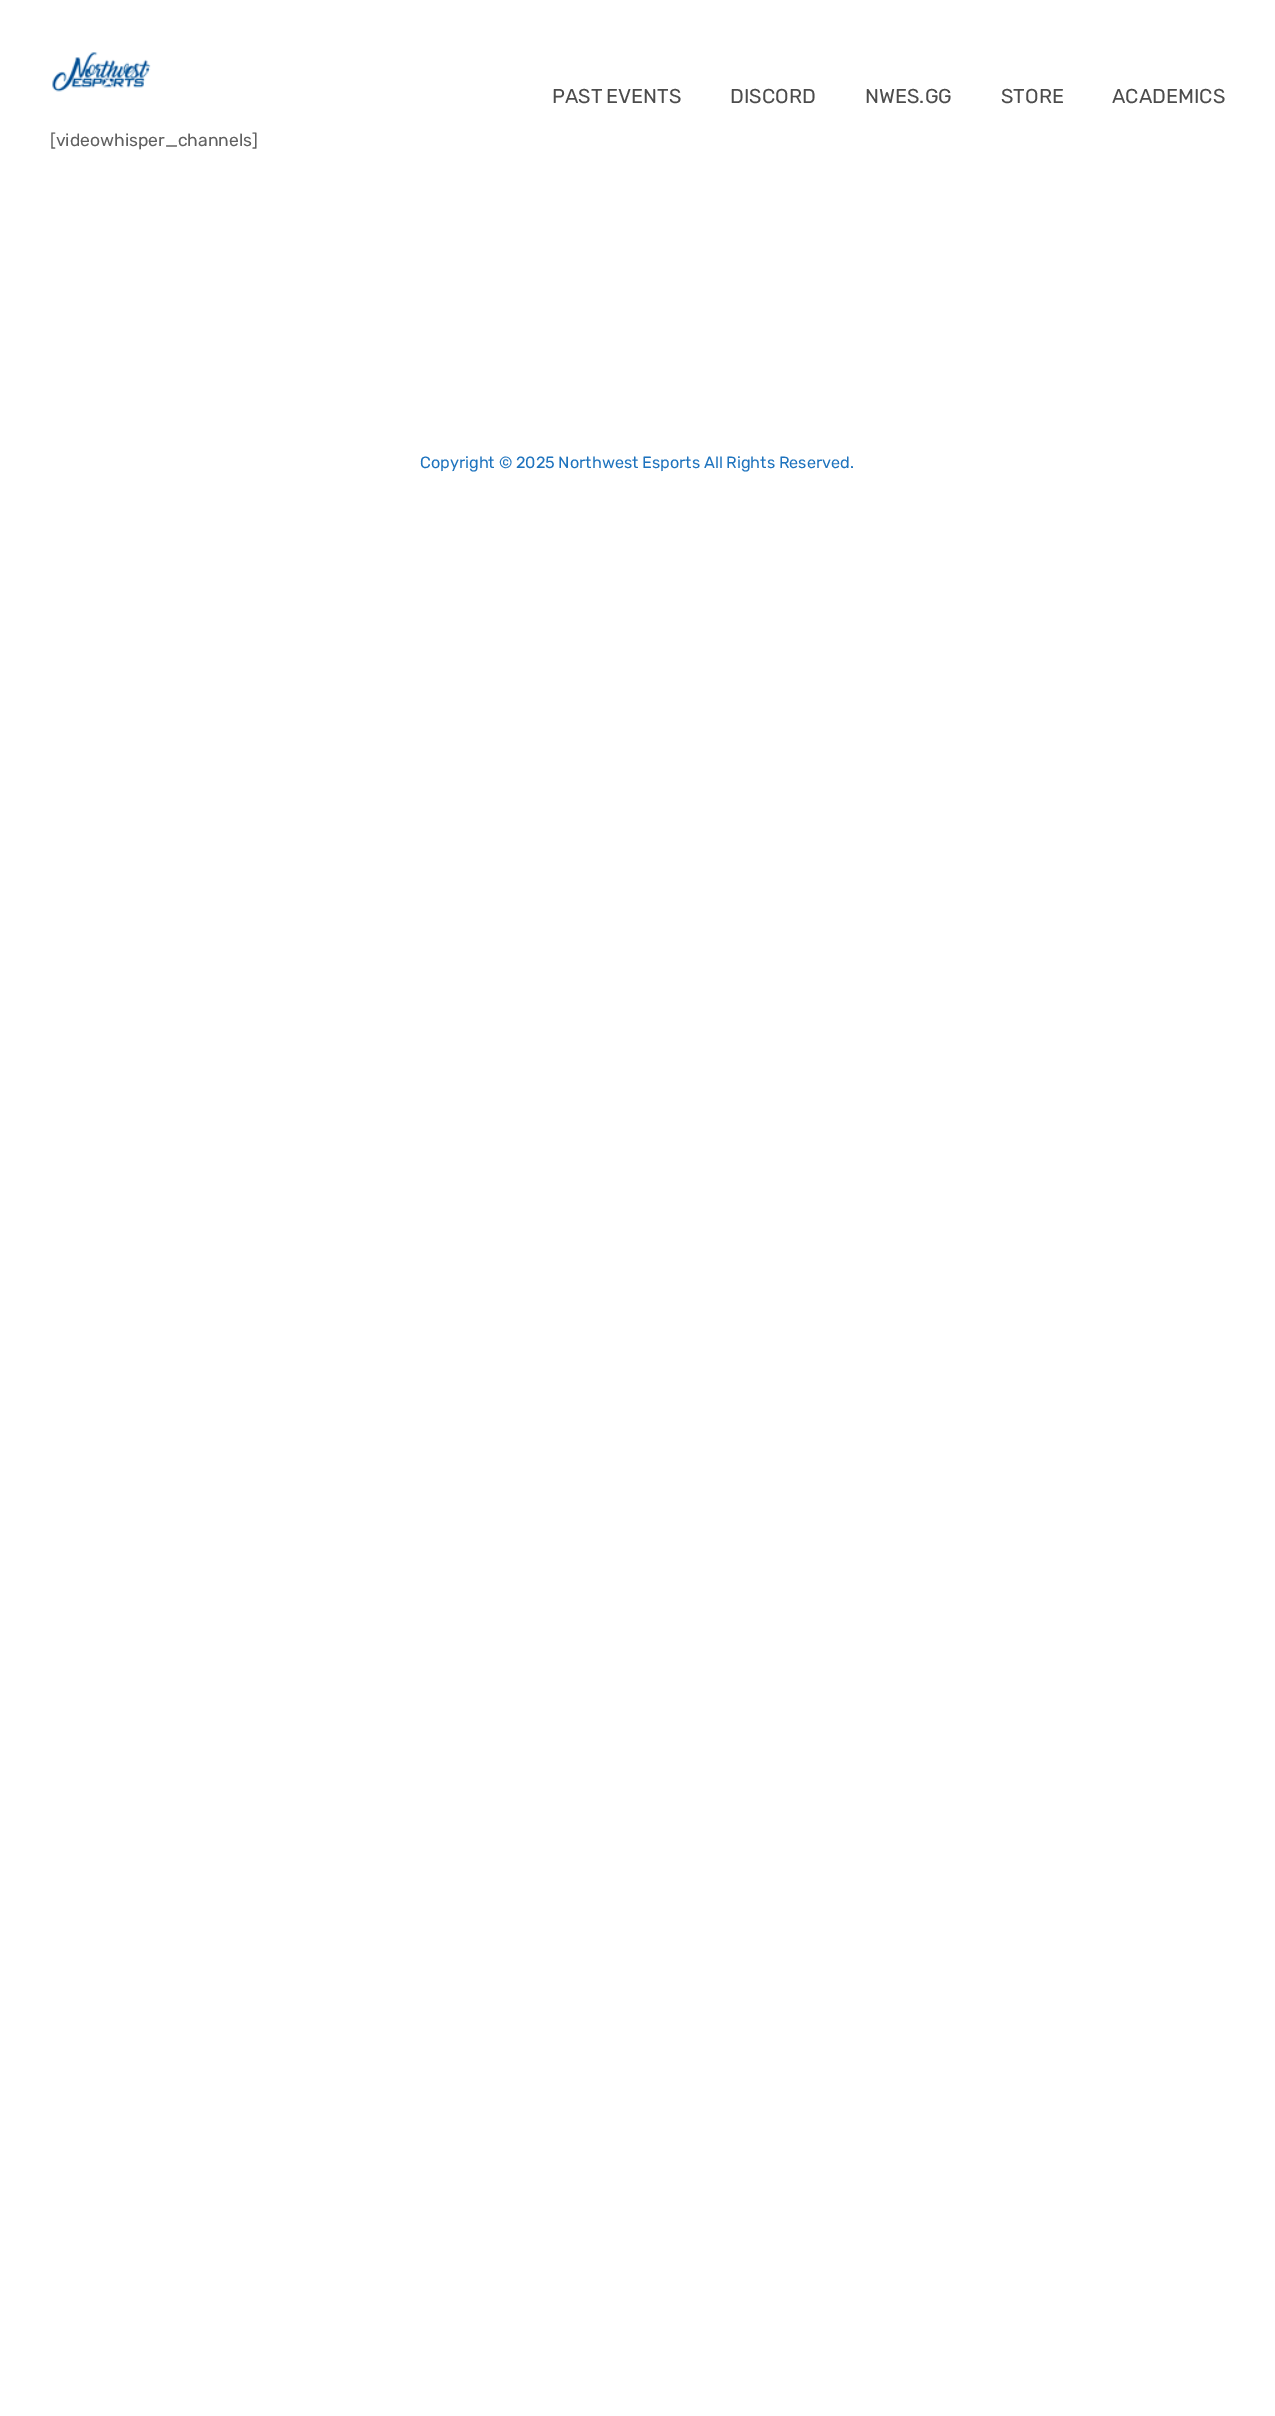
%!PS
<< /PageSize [1275 2416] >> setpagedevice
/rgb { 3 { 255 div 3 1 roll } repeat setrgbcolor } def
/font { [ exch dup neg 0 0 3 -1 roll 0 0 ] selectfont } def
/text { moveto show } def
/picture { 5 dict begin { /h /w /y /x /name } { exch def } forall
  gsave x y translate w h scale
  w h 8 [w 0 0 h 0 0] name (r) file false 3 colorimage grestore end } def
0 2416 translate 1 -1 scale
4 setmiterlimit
255 255 255 rgb
0 0 1275 2416 rectfill
(img_01.rgb) 52 52 99 40 picture
/Rubik-Regular 20 font
76 76 76 rgb
552 103 moveto -1 0 32 (PAST EVENTS) widthshow
(DISCORD) 730 103 text
(NWES.GG) 865 103 text
(STORE) 1001 103 text
(ACADEMICS) 1112 103 text
/Rubik-Regular 17.5 font
96 96 96 rgb
([videowhisper_channels]) 50 146 text
/Rubik-Regular 16.25 font
30 115 190 rgb
420 468 moveto -0.25 0 32 (Copyright © 2025 Northwest Esports All Rights Reserved.) widthshow
showpage
